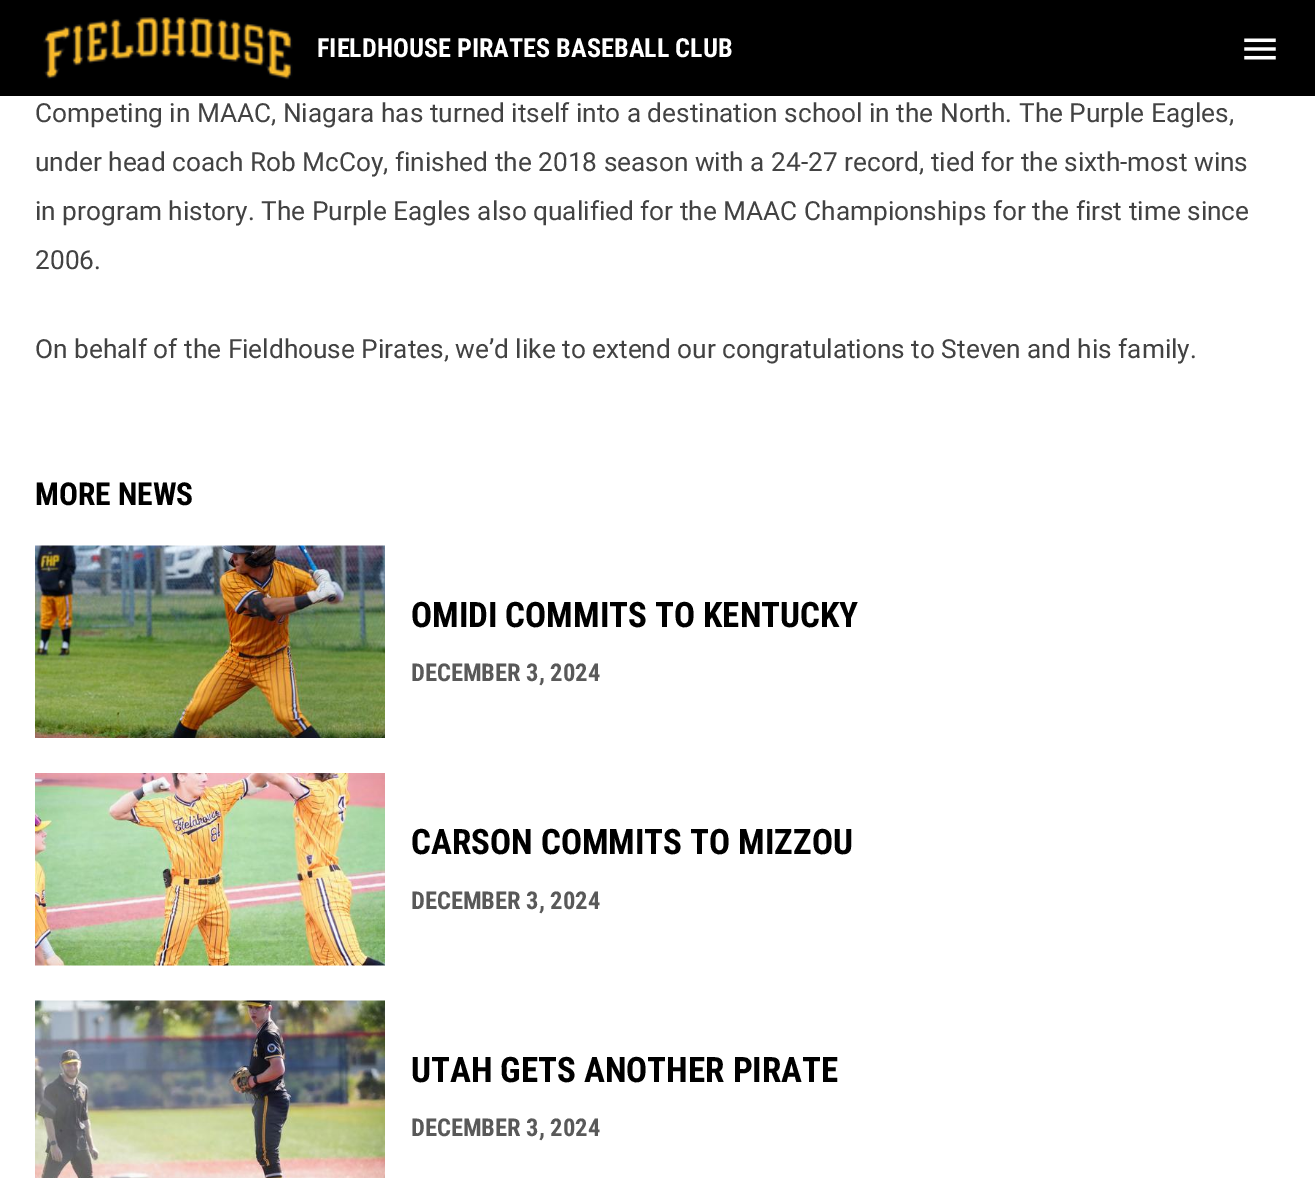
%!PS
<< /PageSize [1315 1178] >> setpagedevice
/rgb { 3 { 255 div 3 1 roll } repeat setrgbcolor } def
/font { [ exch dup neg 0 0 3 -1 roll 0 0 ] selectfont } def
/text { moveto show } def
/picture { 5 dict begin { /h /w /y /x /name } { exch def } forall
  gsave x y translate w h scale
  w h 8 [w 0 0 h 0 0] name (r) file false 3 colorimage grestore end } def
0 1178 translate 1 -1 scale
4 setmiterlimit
255 255 255 rgb
0 0 1315 1178 rectfill
0 0 0 rgb
0 0 1315 96 rectfill
(img_01.rgb) 43 16 250 64 picture
(img_02.rgb) 1244 38 32 22 picture
(img_03.rgb) 35 545 350 193 picture
(img_04.rgb) 35 773 350 193 picture
(img_05.rgb) 35 1000 350 178 picture
/RobotoCondensed-Bold 26.25 font
255 255 255 rgb
(FIELDHOUSE PIRATES BASEBALL CLUB) 317 57 text
/Roboto-Regular 26.25 font
66 66 66 rgb
(Competing in MAAC, Niagara has turned itself into a destination school in the North. The Purple Eagles,) 35 122 text
(under head coach Rob McCoy, finished the 2018 season with a 24-27 record, tied for the sixth-most wins) 35 171 text
(in program history. The Purple Eagles also qualified for the MAAC Championships for the first time since) 35 220 text
(2006.) 35 269 text
(On behalf of the Fieldhouse Pirates, we’d like to extend our congratulations to Steven and his family.) 35 358 text
/RobotoCondensed-Bold 31.5 font
0 0 0 rgb
(MORE NEWS) 35 505 text
/RobotoCondensed-Bold 35 font
(OMIDI COMMITS TO KENTUCKY) 411 627 text
/RobotoCondensed-Bold 24.5 font
89 89 89 rgb
(DECEMBER 3, 2024) 411 681 text
/RobotoCondensed-Bold 35 font
0 0 0 rgb
(CARSON COMMITS TO MIZZOU) 411 854 text
/RobotoCondensed-Bold 24.5 font
89 89 89 rgb
(DECEMBER 3, 2024) 411 909 text
/RobotoCondensed-Bold 35 font
0 0 0 rgb
(UTAH GETS ANOTHER PIRATE) 411 1082 text
/RobotoCondensed-Bold 24.5 font
89 89 89 rgb
(DECEMBER 3, 2024) 411 1136 text
showpage
